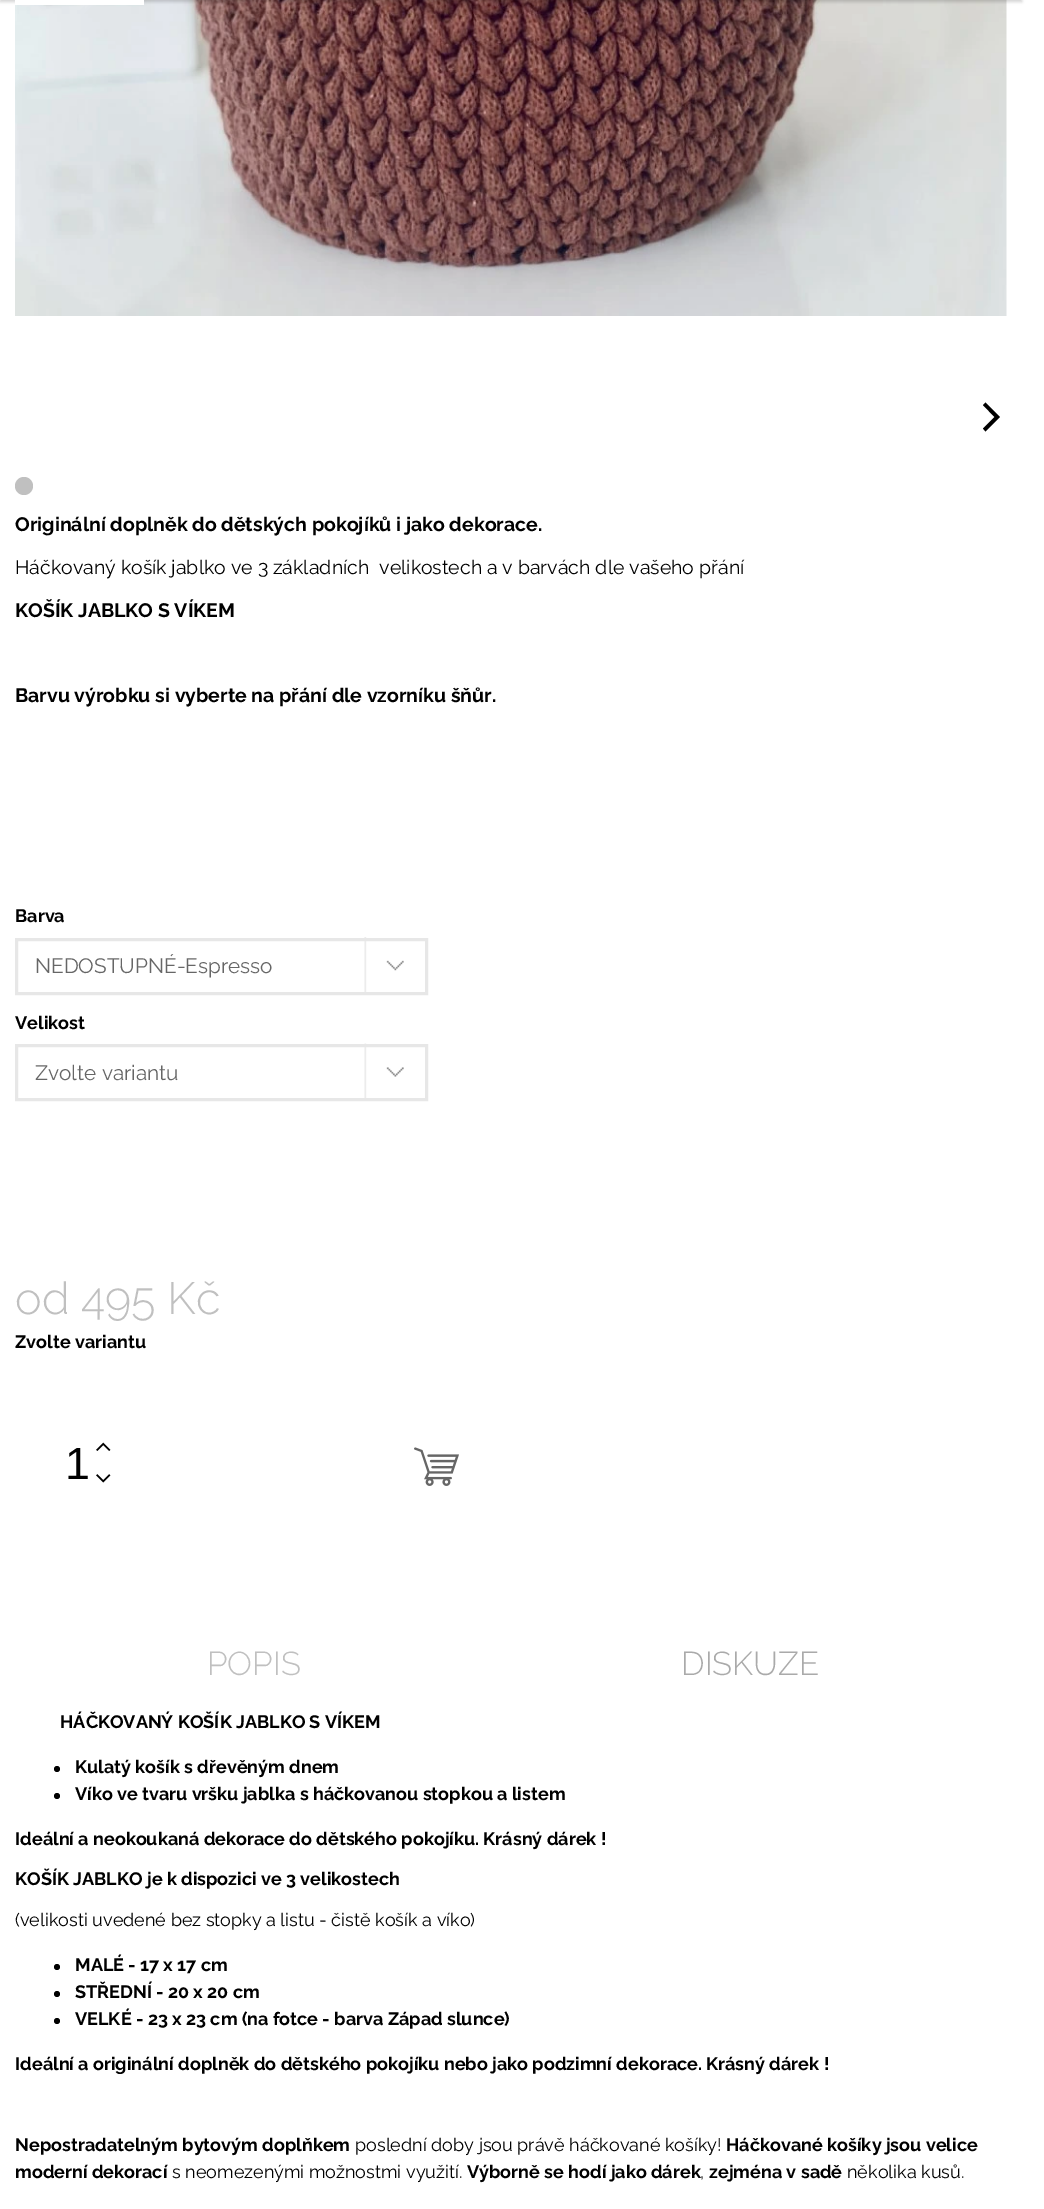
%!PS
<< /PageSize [1044 2209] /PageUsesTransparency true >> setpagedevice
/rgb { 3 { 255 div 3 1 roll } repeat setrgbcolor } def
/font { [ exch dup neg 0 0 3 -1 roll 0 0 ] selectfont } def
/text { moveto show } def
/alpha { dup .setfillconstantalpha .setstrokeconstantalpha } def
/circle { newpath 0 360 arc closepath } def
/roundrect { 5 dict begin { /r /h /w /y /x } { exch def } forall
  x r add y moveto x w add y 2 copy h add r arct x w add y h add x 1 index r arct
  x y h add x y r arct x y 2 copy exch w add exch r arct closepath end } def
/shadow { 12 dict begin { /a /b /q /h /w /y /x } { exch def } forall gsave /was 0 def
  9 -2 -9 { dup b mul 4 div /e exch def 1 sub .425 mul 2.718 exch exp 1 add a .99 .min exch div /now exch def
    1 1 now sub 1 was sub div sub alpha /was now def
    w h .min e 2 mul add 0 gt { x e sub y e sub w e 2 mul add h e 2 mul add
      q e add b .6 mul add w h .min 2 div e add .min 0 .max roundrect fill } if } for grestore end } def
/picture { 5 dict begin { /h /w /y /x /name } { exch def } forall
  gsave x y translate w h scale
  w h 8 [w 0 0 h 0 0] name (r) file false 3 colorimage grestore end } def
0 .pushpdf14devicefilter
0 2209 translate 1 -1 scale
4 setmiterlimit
255 255 255 rgb
0 0 1044 2209 rectfill
(img_01.rgb) 15 0 992 316 picture
0 0 0 rgb
0 -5 1022 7 0 1.5 0.16 shadow
255 255 255 rgb
15 0 129 5 rectfill
0 0 0 rgb
985.5 431.5 moveto -2.5 -3 rlineto 11.5 -11.5 rlineto -11.5 -12 rlineto 2.5 -2.5 rlineto 14.5 14.5 rlineto closepath fill
192 192 192 rgb
24 486 9 circle fill
(img_02.rgb) 364 937 40 55 picture
231 231 231 rgb
3 setlinewidth
16.5 939.5 410 54 rectstroke
(img_03.rgb) 364 1043 40 55 picture
16.5 1045.5 410 54 rectstroke
(img_04.rgb) 96 1442 15 9 picture
(img_05.rgb) 96 1474 15 9 picture
(img_06.rgb) 414 1447 45 39 picture
0 0 0 rgb
57 1769 3 circle fill
57 1796 3 circle fill
57 1967 3 circle fill
57 1994 3 circle fill
57 2021 3 circle fill
/Raleway-Bold 19.5 font
(Originální doplněk do dětských pokojíků i jako dekorace.) 15 531 text
/Raleway-Regular 19.5 font
(Háčkovaný košík jablko ve 3 základních  velikostech a v barvách dle vašeho přání) 15 574 text
/Raleway-Bold 19.5 font
(KOŠÍK JABLKO S VÍKEM) 15 617 text
(Barvu výrobku si vyberte na přání dle vzorníku šňůr.) 15 702 text
/Raleway-Bold 18 font
(Barva) 15 922 text
/Raleway-Regular 20.75 font
102 102 102 rgb
(NEDOSTUPNÉ-Espresso) 35 973 text
/Raleway-Bold 18 font
0 0 0 rgb
(Velikost) 15 1029 text
/Raleway-Regular 20.75 font
102 102 102 rgb
(Zvolte variantu) 35 1080 text
/Raleway-Light 45 font
192 192 192 rgb
(od 495 Kč) 15 1314 text
/Raleway-Bold 18 font
0 0 0 rgb
(Zvolte variantu) 15 1348 text
/LiberationSans-Regular 45 font
(1) 65 1479 text
/Raleway-Light 33 font
192 192 192 rgb
(POPIS) 207 1675 text
170 170 170 rgb
(DISKUZE) 681 1675 text
/Raleway-Bold 18 font
0 0 0 rgb
(HÁČKOVANÝ KOŠÍK JABLKO S VÍKEM) 60 1728 text
(Kulatý košík s dřevěným dnem) 75 1773 text
(Víko ve tvaru vršku jablka s háčkovanou stopkou a listem) 75 1800 text
(Ideální a neokoukaná dekorace do dětského pokojíku. Krásný dárek !) 15 1845 text
(KOŠÍK JABLKO je k dispozici ve 3 velikostech) 15 1885 text
/Raleway-Regular 18 font
(\(velikosti uvedené bez stopky a listu - čistě košík a víko\)) 15 1926 text
/Raleway-Bold 18 font
(MALÉ - 17 x 17 cm) 75 1971 text
(STŘEDNÍ - 20 x 20 cm) 75 1998 text
(VELKÉ - 23 x 23 cm \(na fotce - barva Západ slunce\)) 75 2025 text
(Ideální a originální doplněk do dětského pokojíku nebo jako podzimní dekorace. Krásný dárek !) 15 2070 text
(Nepostradatelným bytovým doplňkem) 15 2151 text
/Raleway-Regular 18 font
(poslední doby jsou právě háčkované košíky!) 355 2151 text
/Raleway-Bold 18 font
(Háčkované košíky jsou velice) 726 2151 text
(moderní dekorací) 15 2178 text
/Raleway-Regular 18 font
(s neomezenými možnostmi využití.) 172 2178 text
/Raleway-Bold 18 font
(Výborně se hodí jako dárek) 467 2178 text
/Raleway-Regular 18 font
(,) 700 2178 text
/Raleway-Bold 18 font
(zejména v sadě) 709 2178 text
/Raleway-Regular 18 font
(několika kusů.) 847 2178 text
.poppdf14devicefilter showpage
